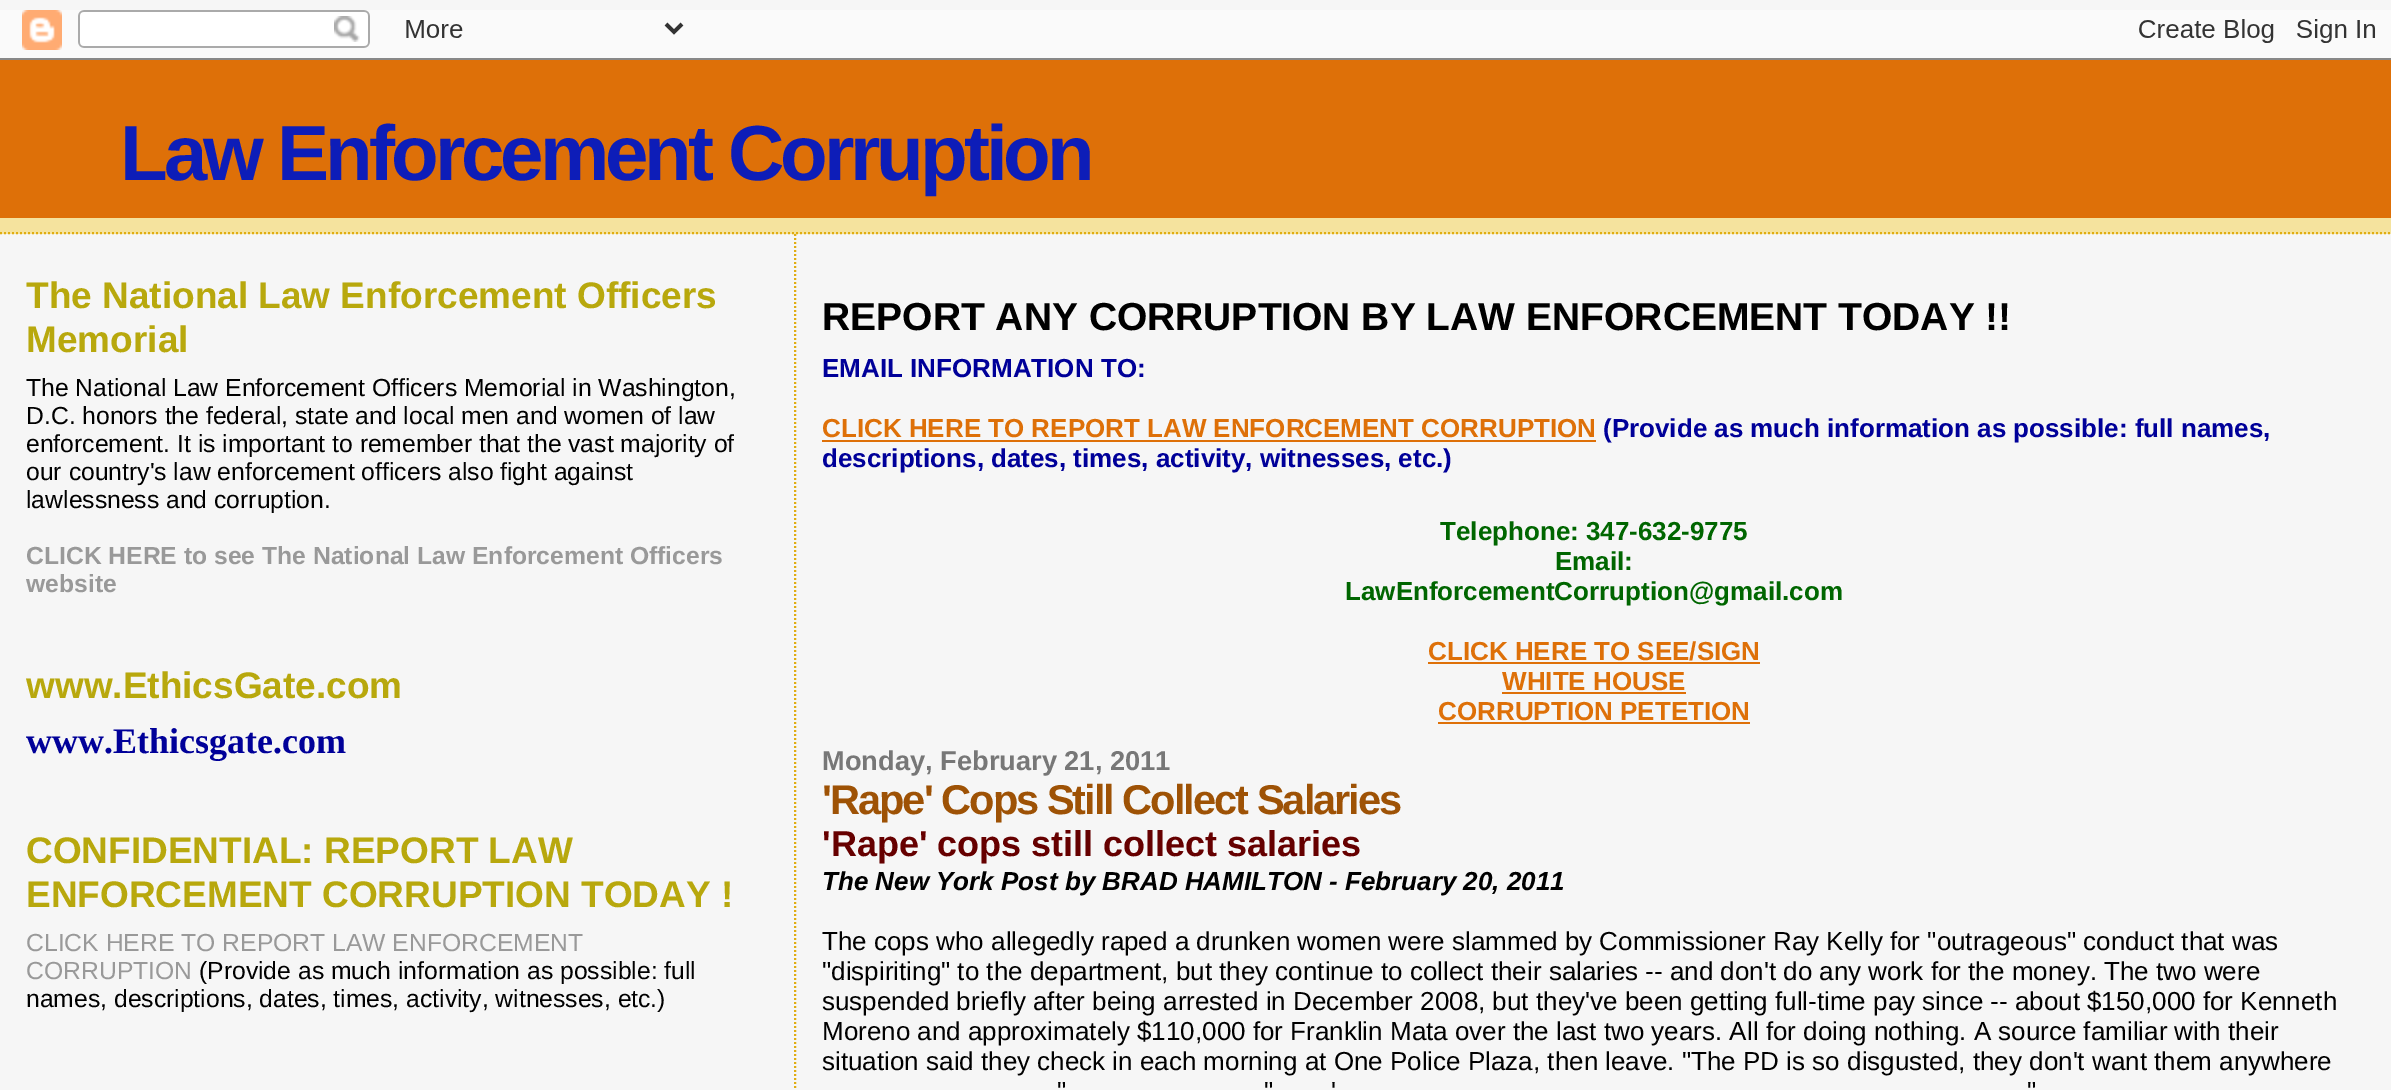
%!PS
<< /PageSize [2391 1090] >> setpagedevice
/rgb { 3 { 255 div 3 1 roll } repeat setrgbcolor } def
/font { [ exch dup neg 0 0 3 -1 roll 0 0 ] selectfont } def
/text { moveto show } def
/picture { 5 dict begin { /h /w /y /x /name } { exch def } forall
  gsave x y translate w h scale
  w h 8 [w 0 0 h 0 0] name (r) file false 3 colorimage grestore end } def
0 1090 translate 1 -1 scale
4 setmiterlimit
246 246 246 rgb
0 0 2391 1090 rectfill
(img_01.rgb) 0 10 2391 50 picture
245 227 158 rgb
0 218 2391 16 rectfill
224 173 18 rgb
2 setlinewidth
[2 2] 0 setdash
0 233 moveto 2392 0 rlineto stroke
222 112 8 rgb
0 60 2391 158 rectfill
224 173 18 rgb
795 234 moveto 0 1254 rlineto stroke
222 112 8 rgb
822 440 774 2 rectfill
1428 662 332 2 rectfill
1502 692 184 2 rectfill
1438 722 312 2 rectfill
/LiberationSans-Bold 78 font
13 29 184 rgb
120 180 moveto -4 0 (Law Enforcement Corruption) ashow
/LiberationSans-Bold 37 font
184 168 13 rgb
(The National Law Enforcement Officers) 26 308 text
(Memorial) 26 352 text
/LiberationSans-Regular 24.7 font
0 0 0 rgb
(The National Law Enforcement Officers Memorial in Washington,) 26 396 text
(D.C. honors the federal, state and local men and women of law) 26 424 text
(enforcement. It is important to remember that the vast majority of) 26 452 text
(our country's law enforcement officers also fight against) 26 480 text
(lawlessness and corruption.) 26 508 text
/LiberationSans-Bold 24.7 font
153 153 153 rgb
(CLICK HERE to see The National Law Enforcement Officers) 26 564 text
(website) 26 592 text
/LiberationSans-Bold 37 font
184 168 13 rgb
(www.EthicsGate.com) 26 698 text
/LiberationSerif-Bold 36 font
0 0 153 rgb
(www.Ethicsgate.com) 26 753 text
/LiberationSans-Bold 37 font
184 168 13 rgb
(CONFIDENTIAL: REPORT LAW) 26 863 text
(ENFORCEMENT CORRUPTION TODAY !) 26 907 text
/LiberationSans-Regular 24.7 font
153 153 153 rgb
(CLICK HERE TO REPORT LAW ENFORCEMENT) 26 951 text
(CORRUPTION) 26 979 text
0 0 0 rgb
(\(Provide as much information as possible: full) 199 979 text
(names, descriptions, dates, times, activity, witnesses, etc.\)) 26 1007 text
/LiberationSans-Bold 39 font
(REPORT ANY CORRUPTION BY LAW ENFORCEMENT TODAY !!) 822 330 text
/LiberationSans-Bold 26 font
0 0 153 rgb
(EMAIL INFORMATION TO:) 822 377 text
222 112 8 rgb
(CLICK HERE TO REPORT LAW ENFORCEMENT CORRUPTION) 822 437 text
0 0 153 rgb
(\(Provide as much information as possible: full names,) 1603 437 text
(descriptions, dates, times, activity, witnesses, etc.\)) 822 467 text
0 102 0 rgb
(Telephone: 347-632-9775) 1440 540 text
(Email:) 1555 570 text
(LawEnforcementCorruption@gmail.com) 1345 600 text
222 112 8 rgb
(CLICK HERE TO SEE/SIGN) 1428 660 text
(WHITE HOUSE) 1502 690 text
(CORRUPTION PETETION) 1438 720 text
/LiberationSans-Bold 27.25 font
119 119 119 rgb
(Monday, February 21, 2011) 822 770 text
/LiberationSans-Bold 41.6 font
158 82 5 rgb
822 814 moveto -2 0 ('Rape' Cops Still Collect Salaries) ashow
/LiberationSans-Bold 36 font
102 0 0 rgb
('Rape' cops still collect salaries) 822 856 text
/LiberationSans-BoldItalic 26 font
0 0 0 rgb
(The New York Post by BRAD HAMILTON - February 20, 2011) 822 890 text
/LiberationSans-Regular 26 font
(The cops who allegedly raped a drunken women were slammed by Commissioner Ray Kelly for "outrageous" conduct that was) 822 950 text
("dispiriting" to the department, but they continue to collect their salaries -- and don't do any work for the money. The two were) 822 980 text
(suspended briefly after being arrested in December 2008, but they've been getting full-time pay since -- about $150,000 for Kenneth) 822 1010 text
(Moreno and approximately $110,000 for Franklin Mata over the last two years. All for doing nothing. A source familiar with their) 822 1040 text
(situation said they check in each morning at One Police Plaza, then leave. "The PD is so disgusted, they don't want them anywhere) 822 1070 text
(") 1057 1100 text
(") 1264 1100 text
(') 1331 1100 text
(") 2027 1100 text
showpage
